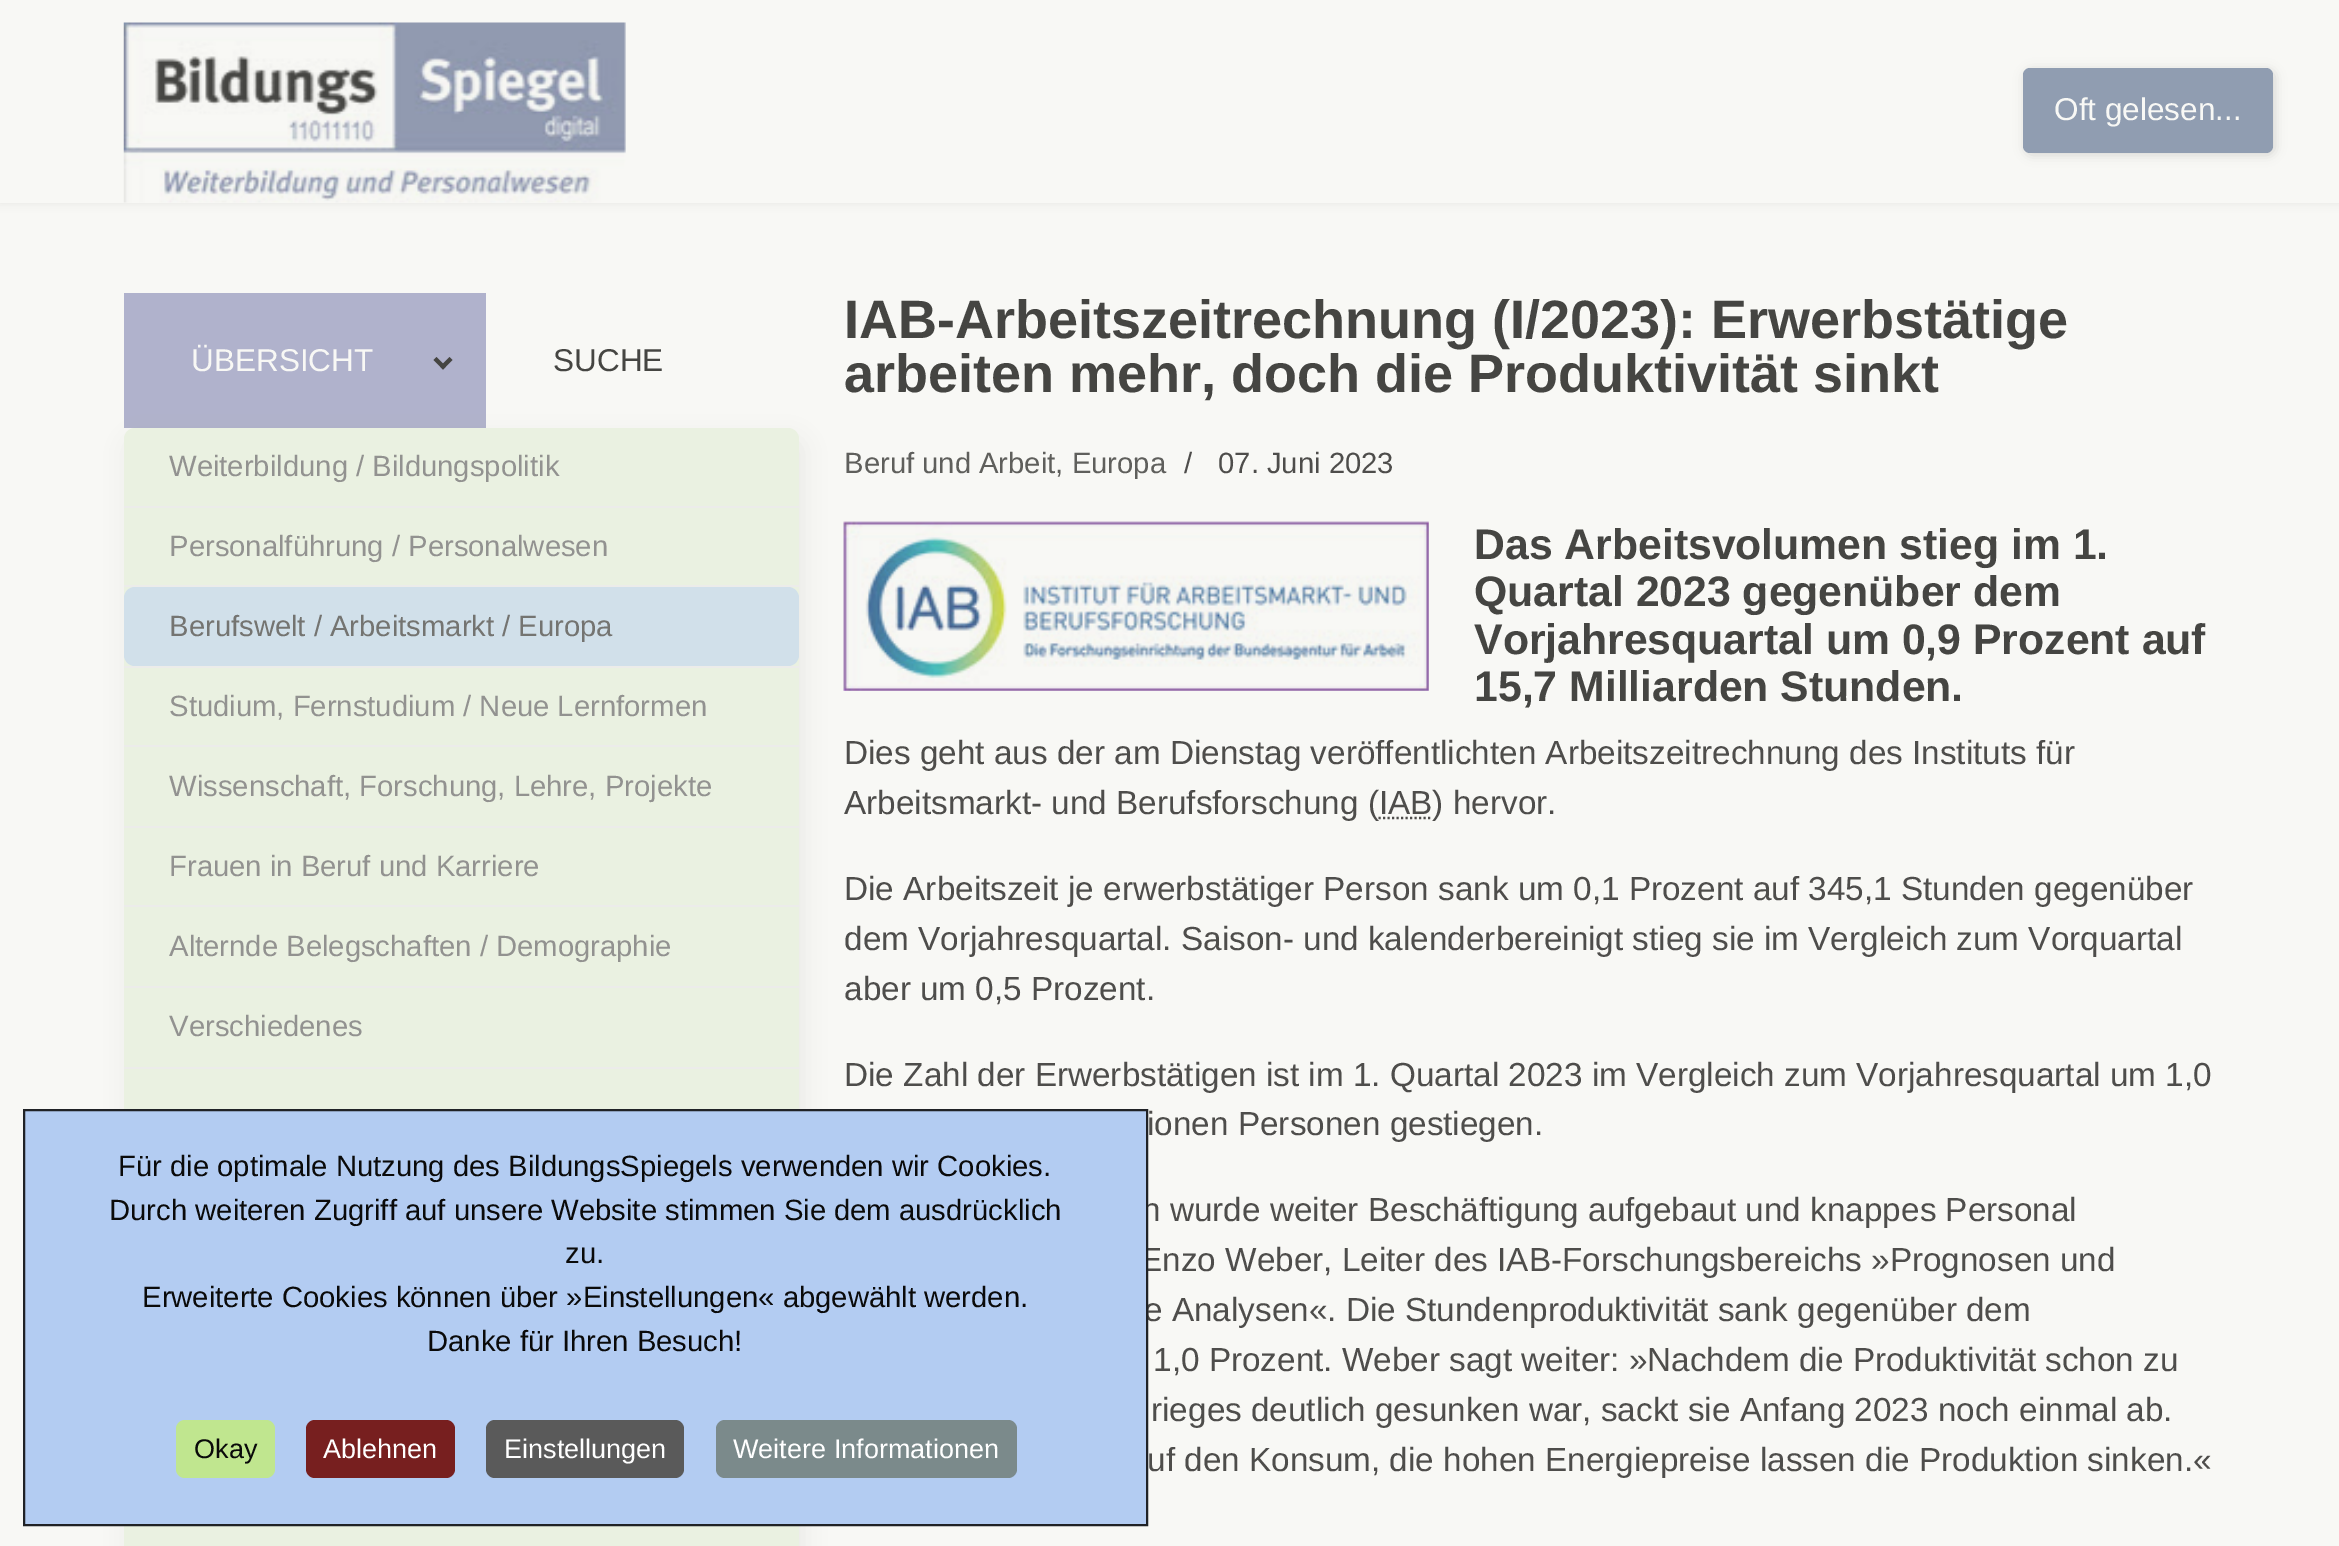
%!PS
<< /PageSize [2339 1546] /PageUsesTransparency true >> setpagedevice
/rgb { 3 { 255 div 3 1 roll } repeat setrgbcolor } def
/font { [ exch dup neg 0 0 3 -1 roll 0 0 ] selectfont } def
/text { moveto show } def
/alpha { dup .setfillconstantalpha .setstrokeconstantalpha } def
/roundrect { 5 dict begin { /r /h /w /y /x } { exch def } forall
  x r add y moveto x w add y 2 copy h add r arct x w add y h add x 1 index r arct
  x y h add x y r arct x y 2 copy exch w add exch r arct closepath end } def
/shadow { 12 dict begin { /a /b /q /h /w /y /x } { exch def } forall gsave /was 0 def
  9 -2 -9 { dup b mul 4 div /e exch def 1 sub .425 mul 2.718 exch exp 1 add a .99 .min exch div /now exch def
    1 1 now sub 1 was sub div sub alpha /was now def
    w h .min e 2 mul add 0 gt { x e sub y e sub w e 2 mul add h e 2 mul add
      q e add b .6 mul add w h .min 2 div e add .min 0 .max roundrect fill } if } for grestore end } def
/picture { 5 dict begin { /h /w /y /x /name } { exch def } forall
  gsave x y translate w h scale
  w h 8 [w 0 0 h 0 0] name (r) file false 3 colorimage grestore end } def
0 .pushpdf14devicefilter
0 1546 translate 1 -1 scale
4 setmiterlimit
248 248 245 rgb
0 0 2339 1546 rectfill
69 69 66 rgb
0 0 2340 203 0 4.5 0.1 shadow
248 248 245 rgb
0 0 2339 203 rectfill
69 69 66 rgb
2025 70 250 85 7 5.5 0.2 shadow
144 157 177 rgb
2023 68 250 85 7 roundrect fill
(img_01.rgb) 123 22 503 181 picture
176 178 204 rgb
124 293 362 135 rectfill
69 69 66 rgb
449.5 357 moveto 3 3 rlineto -9.5 9.5 rlineto -3 -3 rlineto closepath fill
436.5 357 moveto 9.5 9.5 rlineto -3 3 rlineto -9.5 -9.5 rlineto closepath fill
128 439 675 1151 11 11 0.08 shadow
234 241 225 rgb
124 428 675 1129 11 roundrect fill
236 236 234 rgb
124 506 675 2 rectfill
124 585 675 2 rectfill
209 224 234 rgb
124 587 675 79 11 roundrect fill
236 236 234 rgb
124 666 675 2 rectfill
124 745 675 2 rectfill
124 826 675 2 rectfill
124 905 675 2 rectfill
124 986 675 2 rectfill
124 1067 675 2 rectfill
(img_02.rgb) 843 521 586 170 picture
78 77 75 rgb
2.2 setlinewidth
[2.25 2.25] 0 setdash
1378.5 818 moveto 53.5 0 rlineto stroke
/LiberationSans-Regular 31.5 font
248 248 245 rgb
(Oft gelesen...) 2054 120 text
(ÜBERSICHT) 191 371 text
/LiberationSans-Regular 29.25 font
146 146 144 rgb
(Weiterbildung / Bildungspolitik) 169 476 text
(Personalführung / Personalwesen) 169 556 text
116 116 113 rgb
(Berufswelt / Arbeitsmarkt / Europa) 169 636 text
146 146 144 rgb
(Studium, Fernstudium / Neue Lernformen) 169 716 text
(Wissenschaft, Forschung, Lehre, Projekte) 169 796 text
(Frauen in Beruf und Karriere) 169 876 text
(Alternde Belegschaften / Demographie) 169 956 text
(Verschiedenes) 169 1036 text
/LiberationSans-Regular 31.5 font
69 69 66 rgb
(SUCHE) 553 371 text
/LiberationSans-Bold 54 font
(IAB-Arbeitszeitrechnung \(I/2023\): Erwerbstätige) 844 338 text
(arbeiten mehr, doch die Produktivität sinkt) 844 392 text
/LiberationSans-Regular 29.25 font
95 95 92 rgb
(Beruf und Arbeit, Europa) 844 473 text
78 77 75 rgb
(/) 1184 473 text
(07. Juni 2023) 1218 473 text
/LiberationSans-Bold 42.75 font
69 69 66 rgb
(Das Arbeitsvolumen stieg im 1.) 1474 559 text
(Quartal 2023 gegenüber dem) 1474 606 text
(Vorjahresquartal um 0,9 Prozent auf) 1474 654 text
(15,7 Milliarden Stunden.) 1474 701 text
/LiberationSans-Regular 33.3 font
78 77 75 rgb
(Dies geht aus der am Dienstag veröffentlichten Arbeitszeitrechnung des Instituts für) 844 764 text
(Arbeitsmarkt- und Berufsforschung \(IAB\) hervor.) 844 814 text
(Die Arbeitszeit je erwerbstätiger Person sank um 0,1 Prozent auf 345,1 Stunden gegenüber) 844 900 text
(dem Vorjahresquartal. Saison- und kalenderbereinigt stieg sie im Vergleich zum Vorquartal) 844 950 text
(aber um 0,5 Prozent.) 844 1000 text
(Die Zahl der Erwerbstätigen ist im 1. Quartal 2023 im Vergleich zum Vorjahresquartal um 1,0) 844 1086 text
(ionen Personen gestiegen.) 1147 1135 text
(n wurde weiter Beschäftigung aufgebaut und knappes Personal) 1142 1221 text
(Enzo Weber, Leiter des IAB-Forschungsbereichs »Prognosen und) 1140 1271 text
(e Analysen«. Die Stundenproduktivität sank gegenüber dem) 1144 1321 text
(1,0 Prozent. Weber sagt weiter: »Nachdem die Produktivität schon zu) 1153 1371 text
(rieges deutlich gesunken war, sackt sie Anfang 2023 noch einmal ab.) 1151 1421 text
(uf den Konsum, die hohen Energiepreise lassen die Produktion sinken.«) 1147 1471 text
179 204 242 rgb
24 1110 moveto 1123 0 rlineto 0 415 rlineto -1123 0 rlineto closepath gsave fill grestore
32 34 38 rgb
2 setlinewidth
[] 0 setdash
stroke
/LiberationSans-Regular 29.25 font
10 10 10 rgb
(Für die optimale Nutzung des BildungsSpiegels verwenden wir Cookies.) 118 1176 text
(Durch weiteren Zugriff auf unsere Website stimmen Sie dem ausdrücklich) 109 1220 text
(zu.) 565 1263 text
(Erweiterte Cookies können über »Einstellungen« abgewählt werden.) 142 1307 text
(Danke für Ihren Besuch!) 427 1351 text
192 230 143 rgb
176 1420 99 58 9 roundrect fill
/LiberationSans-Regular 27 font
10 10 10 rgb
(Okay) 194 1458 text
119 31 31 rgb
306 1420 149 58 9 roundrect fill
255 255 255 rgb
(Ablehnen) 323 1458 text
90 90 90 rgb
486 1420 198 58 9 roundrect fill
255 255 255 rgb
(Einstellungen) 504 1458 text
123 138 139 rgb
716 1420 301 58 9 roundrect fill
255 255 255 rgb
(Weitere Informationen) 733 1458 text
.poppdf14devicefilter showpage
